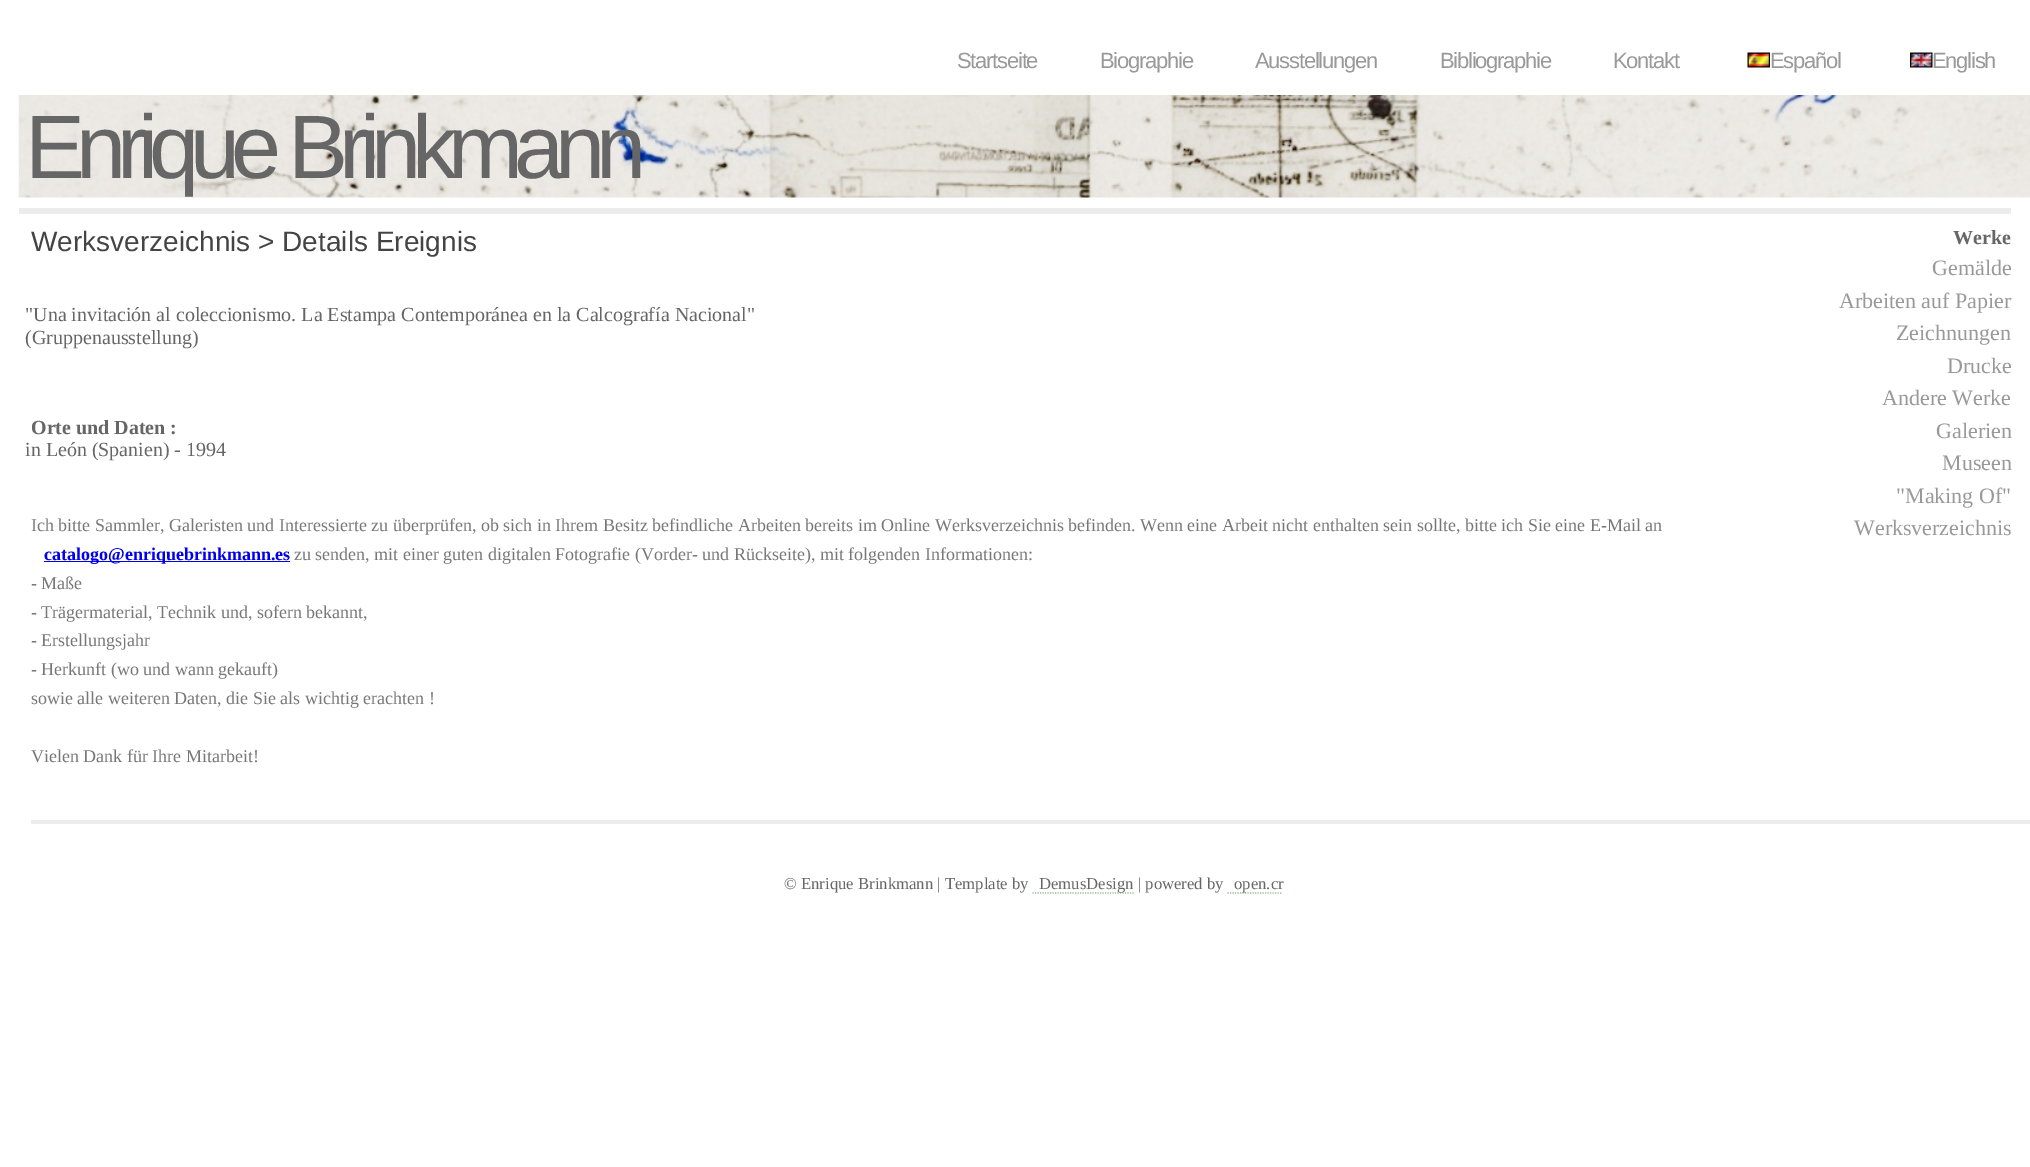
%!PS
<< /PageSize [2030 1167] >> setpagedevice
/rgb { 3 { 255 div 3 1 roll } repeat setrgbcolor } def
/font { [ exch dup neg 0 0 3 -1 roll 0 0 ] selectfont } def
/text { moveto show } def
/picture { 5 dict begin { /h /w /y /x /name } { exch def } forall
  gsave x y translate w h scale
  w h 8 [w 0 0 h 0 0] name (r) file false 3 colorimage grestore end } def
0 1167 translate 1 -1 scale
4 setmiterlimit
255 255 255 rgb
0 0 2030 1167 rectfill
(img_01.rgb) 1747 52 23 16 picture
(img_02.rgb) 1910 52 23 16 picture
(img_03.rgb) 18 95 2012 103 picture
236 236 236 rgb
19 208 1992 6 rectfill
0 0 238 rgb
44 561 246 1 rectfill
236 236 236 rgb
31 820 1999 4 rectfill
146 191 146 rgb
1.2 setlinewidth
[1.25 1.25] 0 setdash
1032.5 893 moveto 101.5 0 rlineto stroke
1227.5 893 moveto 55 0 rlineto stroke
/LiberationSans-Regular 22 font
153 153 153 rgb
957 68 moveto -1.25 0 (Startseite) ashow
1100 68 moveto -1.25 0 (Biographie) ashow
1255 68 moveto -1.25 0 (Ausstellungen) ashow
1440 68 moveto -1.25 0 (Bibliographie) ashow
1613 68 moveto -1.25 0 (Kontakt) ashow
1770 68 moveto -1.25 0 (Español) ashow
1932 68 moveto -1.25 0 (English) ashow
/LiberationSans-Regular 90 font
102 102 102 rgb
25 178 moveto -9 0 (Enrique Brinkmann) ashow
/LiberationSans-Regular 28 font
68 68 68 rgb
(Werksverzeichnis > Details Ereignis) 31 251 text
/LiberationSerif-Regular 20 font
102 102 102 rgb
("Una invitación al coleccionismo. La Estampa Contemporánea en la Calcografía Nacional") 25 321 text
(\(Gruppenausstellung\)) 25 344 text
/LiberationSerif-Bold 20 font
(Orte und Daten :) 31 434 text
/LiberationSerif-Regular 20 font
(in León \(Spanien\) - 1994) 25 456 text
/LiberationSerif-Bold 20 font
(Werke) 1953 244 text
/LiberationSerif-Regular 22 font
153 153 153 rgb
(Gemälde) 1932 275 text
(Arbeiten auf Papier) 1839 308 text
(Zeichnungen) 1896 340 text
(Drucke) 1947 373 text
(Andere Werke) 1882 405 text
(Galerien) 1936 438 text
(Museen) 1942 470 text
("Making Of") 1896 503 text
(Werksverzeichnis) 1854 535 text
/LiberationSerif-Regular 18 font
119 119 119 rgb
(Ich bitte Sammler, Galeristen und Interessierte zu überprüfen, ob sich in Ihrem Besitz befindliche Arbeiten bereits im Online Werksverzeichnis befinden. Wenn eine Arbeit nicht enthalten sein sollte, bitte ich Sie eine E-Mail an) 31 531 text
/LiberationSerif-Bold 18 font
0 0 238 rgb
(catalogo@enriquebrinkmann.es) 44 560 text
/LiberationSerif-Regular 18 font
119 119 119 rgb
(zu senden, mit einer guten digitalen Fotografie \(Vorder- und Rückseite\), mit folgenden Informationen:) 294 560 text
(- Maße) 31 589 text
(- Trägermaterial, Technik und, sofern bekannt,) 31 618 text
(- Erstellungsjahr) 31 646 text
(- Herkunft \(wo und wann gekauft\)) 31 675 text
(sowie alle weiteren Daten, die Sie als wichtig erachten !) 31 704 text
(Vielen Dank für Ihre Mitarbeit!) 31 762 text
/LiberationSerif-Regular 16.7 font
102 102 102 rgb
(© Enrique Brinkmann | Template by) 784 889 text
(DemusDesign | powered by) 1039 889 text
(open.cr) 1234 889 text
showpage
